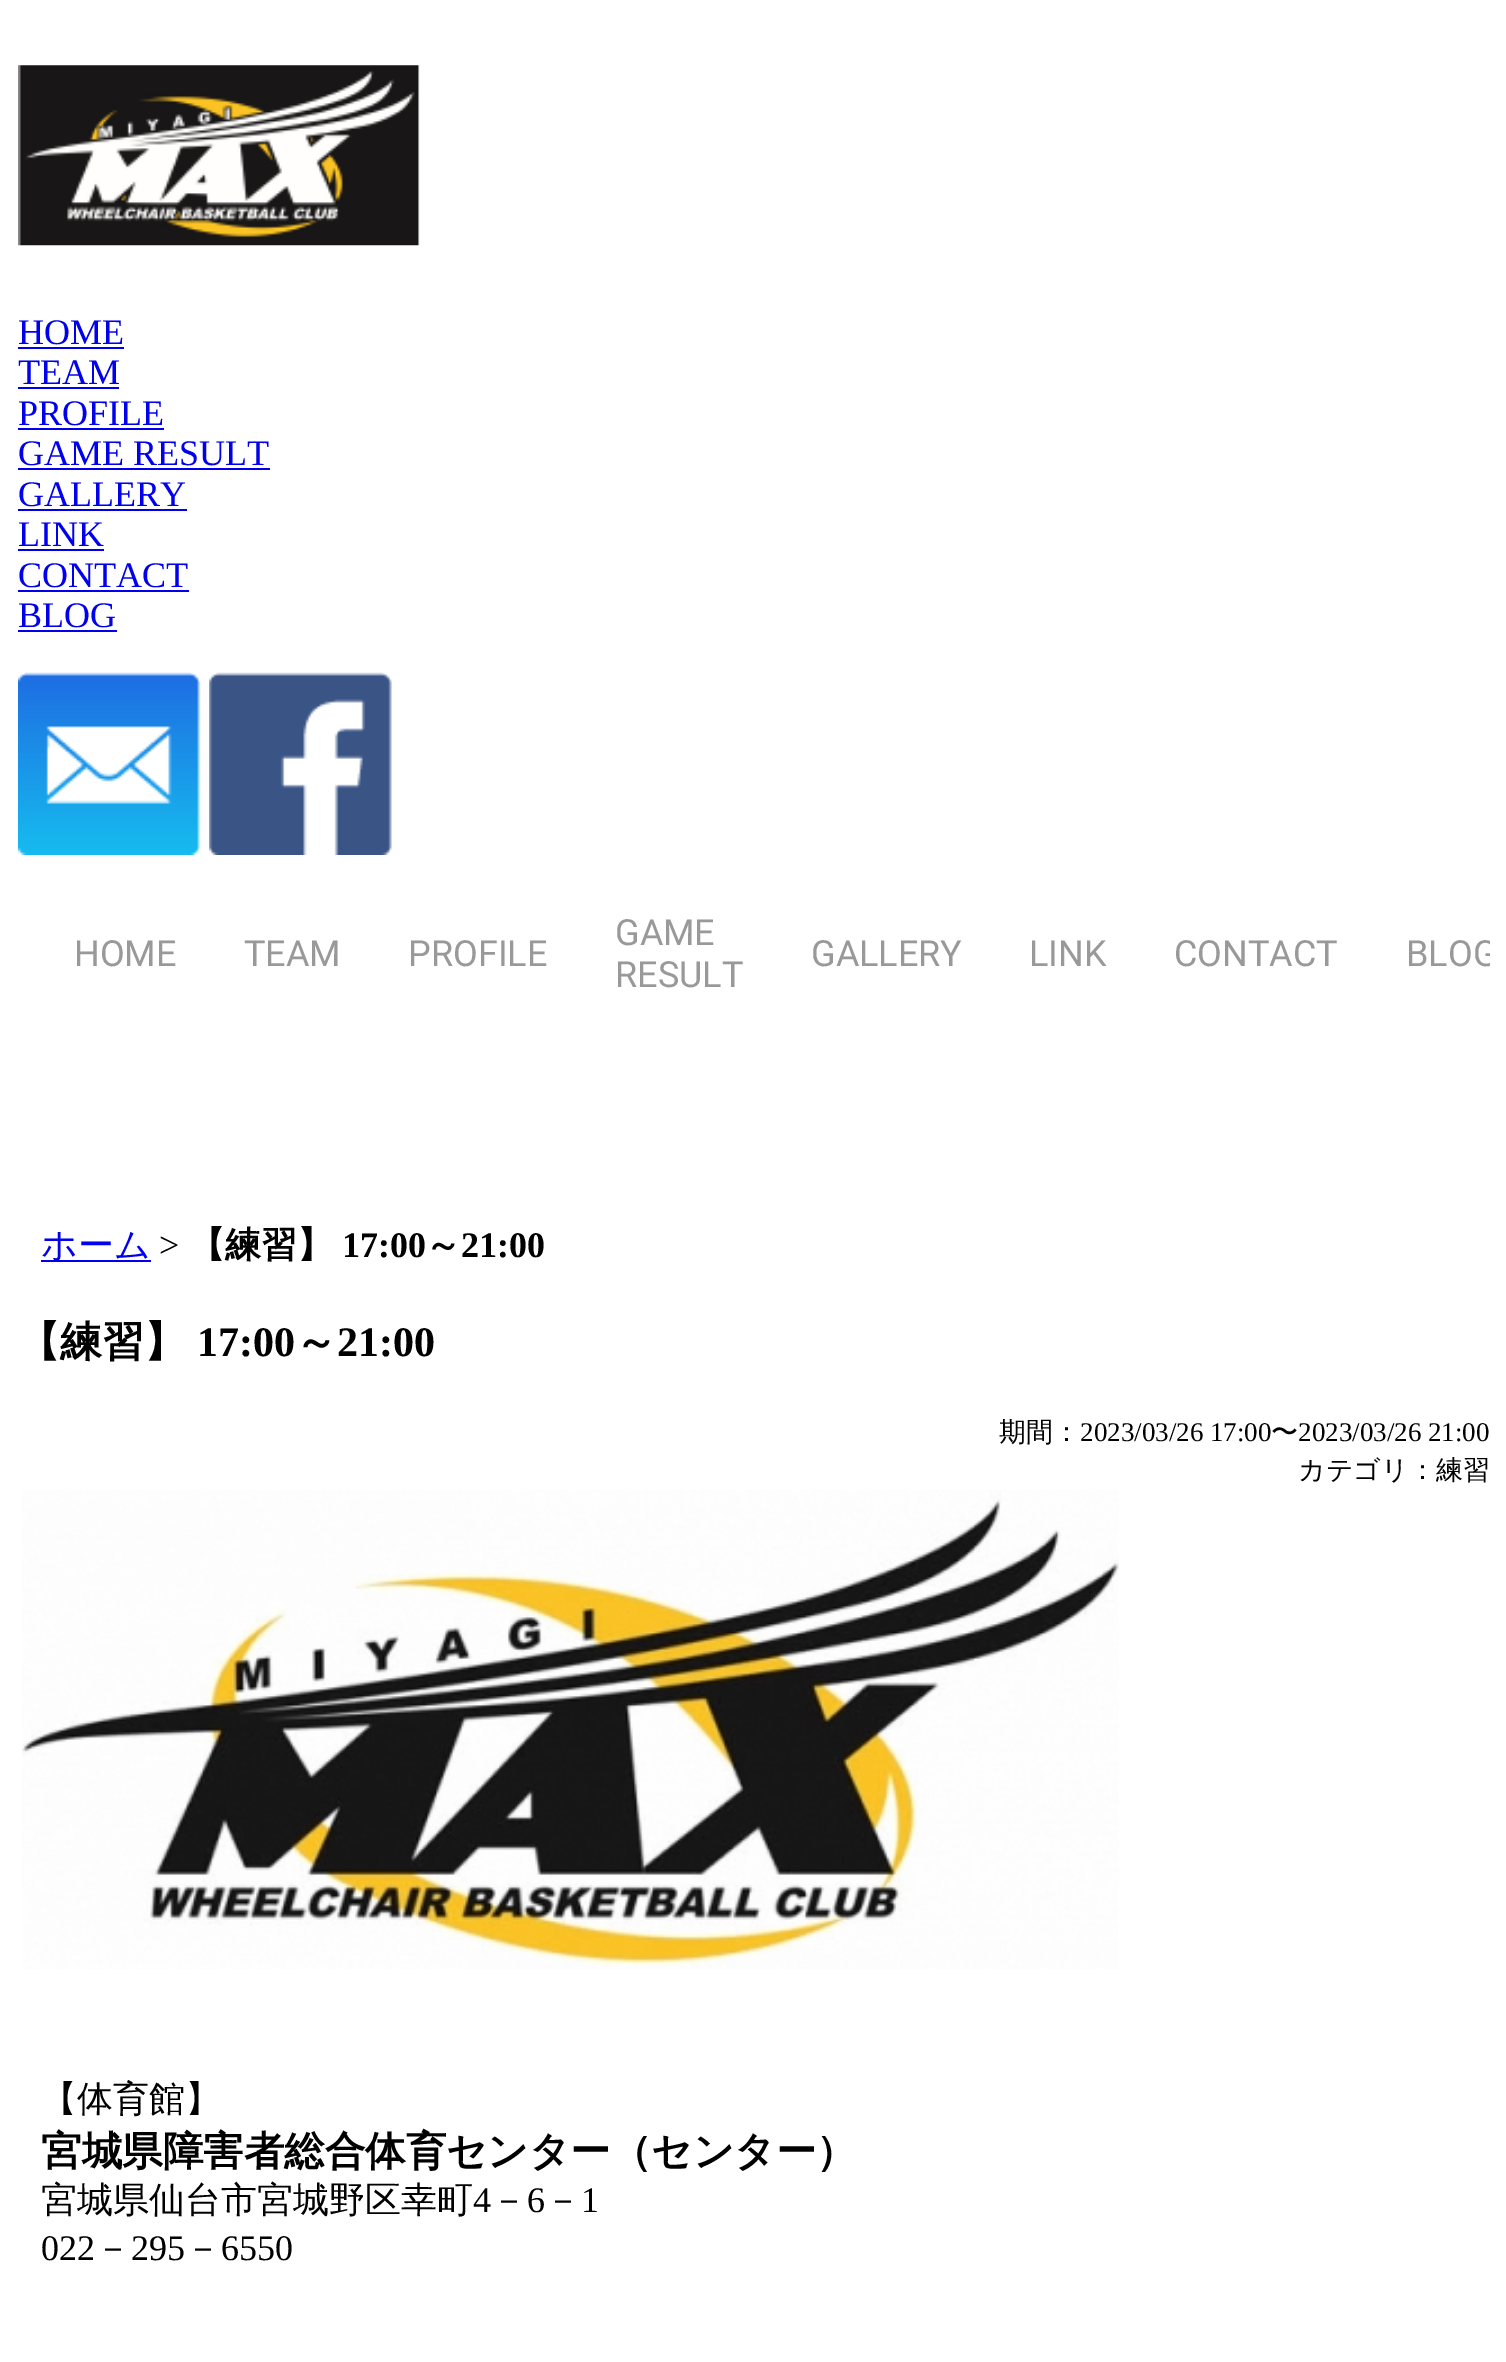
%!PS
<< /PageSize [1506 2362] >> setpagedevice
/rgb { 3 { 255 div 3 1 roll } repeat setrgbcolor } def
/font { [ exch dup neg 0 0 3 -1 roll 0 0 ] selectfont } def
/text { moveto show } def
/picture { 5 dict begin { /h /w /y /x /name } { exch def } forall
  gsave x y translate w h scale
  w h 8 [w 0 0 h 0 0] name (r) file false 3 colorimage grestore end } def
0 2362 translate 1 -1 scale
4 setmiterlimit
255 255 255 rgb
0 0 1506 2362 rectfill
(img_01.rgb) 18 65 402 181 picture
0 0 238 rgb
18 347 106 2 rectfill
18 387 101 2 rectfill
18 428 146 2 rectfill
18 468 252 2 rectfill
18 509 169 2 rectfill
18 549 86 2 rectfill
18 590 171 2 rectfill
18 630 99 2 rectfill
(img_02.rgb) 18 672 183 183 picture
(img_03.rgb) 209 672 183 183 picture
41 1260 110 2 rectfill
(img_04.rgb) 22 1490 1097 479 picture
/LiberationSerif-Regular 36 font
(HOME) 18 344 text
(TEAM) 18 384 text
(PROFILE) 18 425 text
(GAME RESULT) 18 465 text
(GALLERY) 18 506 text
(LINK) 18 546 text
(CONTACT) 18 587 text
(BLOG) 18 627 text
/Roboto-Regular 36 font
153 153 153 rgb
(HOME) 74 966 text
(TEAM) 244 966 text
(PROFILE) 408 966 text
(GAME) 615 945 text
(RESULT) 615 987 text
(GALLERY) 811 966 text
(LINK) 1029 966 text
(CONTACT) 1174 966 text
gsave
18 18 1472 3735 rectclip
(BLOG) 1406 966 text
grestore
/WenQuanYiZenHei-Medium 36 font
0 0 238 rgb
(ホーム) 41 1257 text
/LiberationSerif-Regular 36 font
0 0 0 rgb
(>) 159 1257 text
/WenQuanYiZenHei-Bold 36 font
(【練習】) 189 1257 text
/LiberationSerif-Bold 36 font
(17:00) 342 1257 text
/WenQuanYiZenHei-Bold 36 font
(～) 425 1257 text
/LiberationSerif-Bold 36 font
(21:00) 461 1257 text
/WenQuanYiZenHei-Bold 42 font
(【練習】) 18 1356 text
/LiberationSerif-Bold 42 font
(17:00) 197 1356 text
/WenQuanYiZenHei-Bold 42 font
(～) 295 1356 text
/LiberationSerif-Bold 42 font
(21:00) 337 1356 text
/WenQuanYiZenHei-Medium 27 font
(期間：) 999 1441 text
/LiberationSerif-Regular 27 font
(2023/03/26 17:00) 1080 1441 text
/WenQuanYiZenHei-Medium 27 font
(〜) 1271 1441 text
/LiberationSerif-Regular 27 font
(2023/03/26 21:00) 1298 1441 text
/WenQuanYiZenHei-Medium 27 font
(カテゴリ：練習) 1298 1479 text
/WenQuanYiZenHei-Medium 36 font
(【体育館】) 41 2111 text
/WenQuanYiZenHei-Bold 40.5 font
(宮城県障害者総合体育センター（センター）) 41 2165 text
/WenQuanYiZenHei-Medium 36 font
(宮城県仙台市宮城野区幸町) 41 2212 text
/LiberationSerif-Regular 36 font
(4) 473 2212 text
/WenQuanYiZenHei-Medium 36 font
(－) 491 2212 text
/LiberationSerif-Regular 36 font
(6) 527 2212 text
/WenQuanYiZenHei-Medium 36 font
(－) 545 2212 text
/LiberationSerif-Regular 36 font
(1) 581 2212 text
(022) 41 2260 text
/WenQuanYiZenHei-Medium 36 font
(－) 95 2260 text
/LiberationSerif-Regular 36 font
(295) 131 2260 text
/WenQuanYiZenHei-Medium 36 font
(－) 185 2260 text
/LiberationSerif-Regular 36 font
(6550) 221 2260 text
showpage
